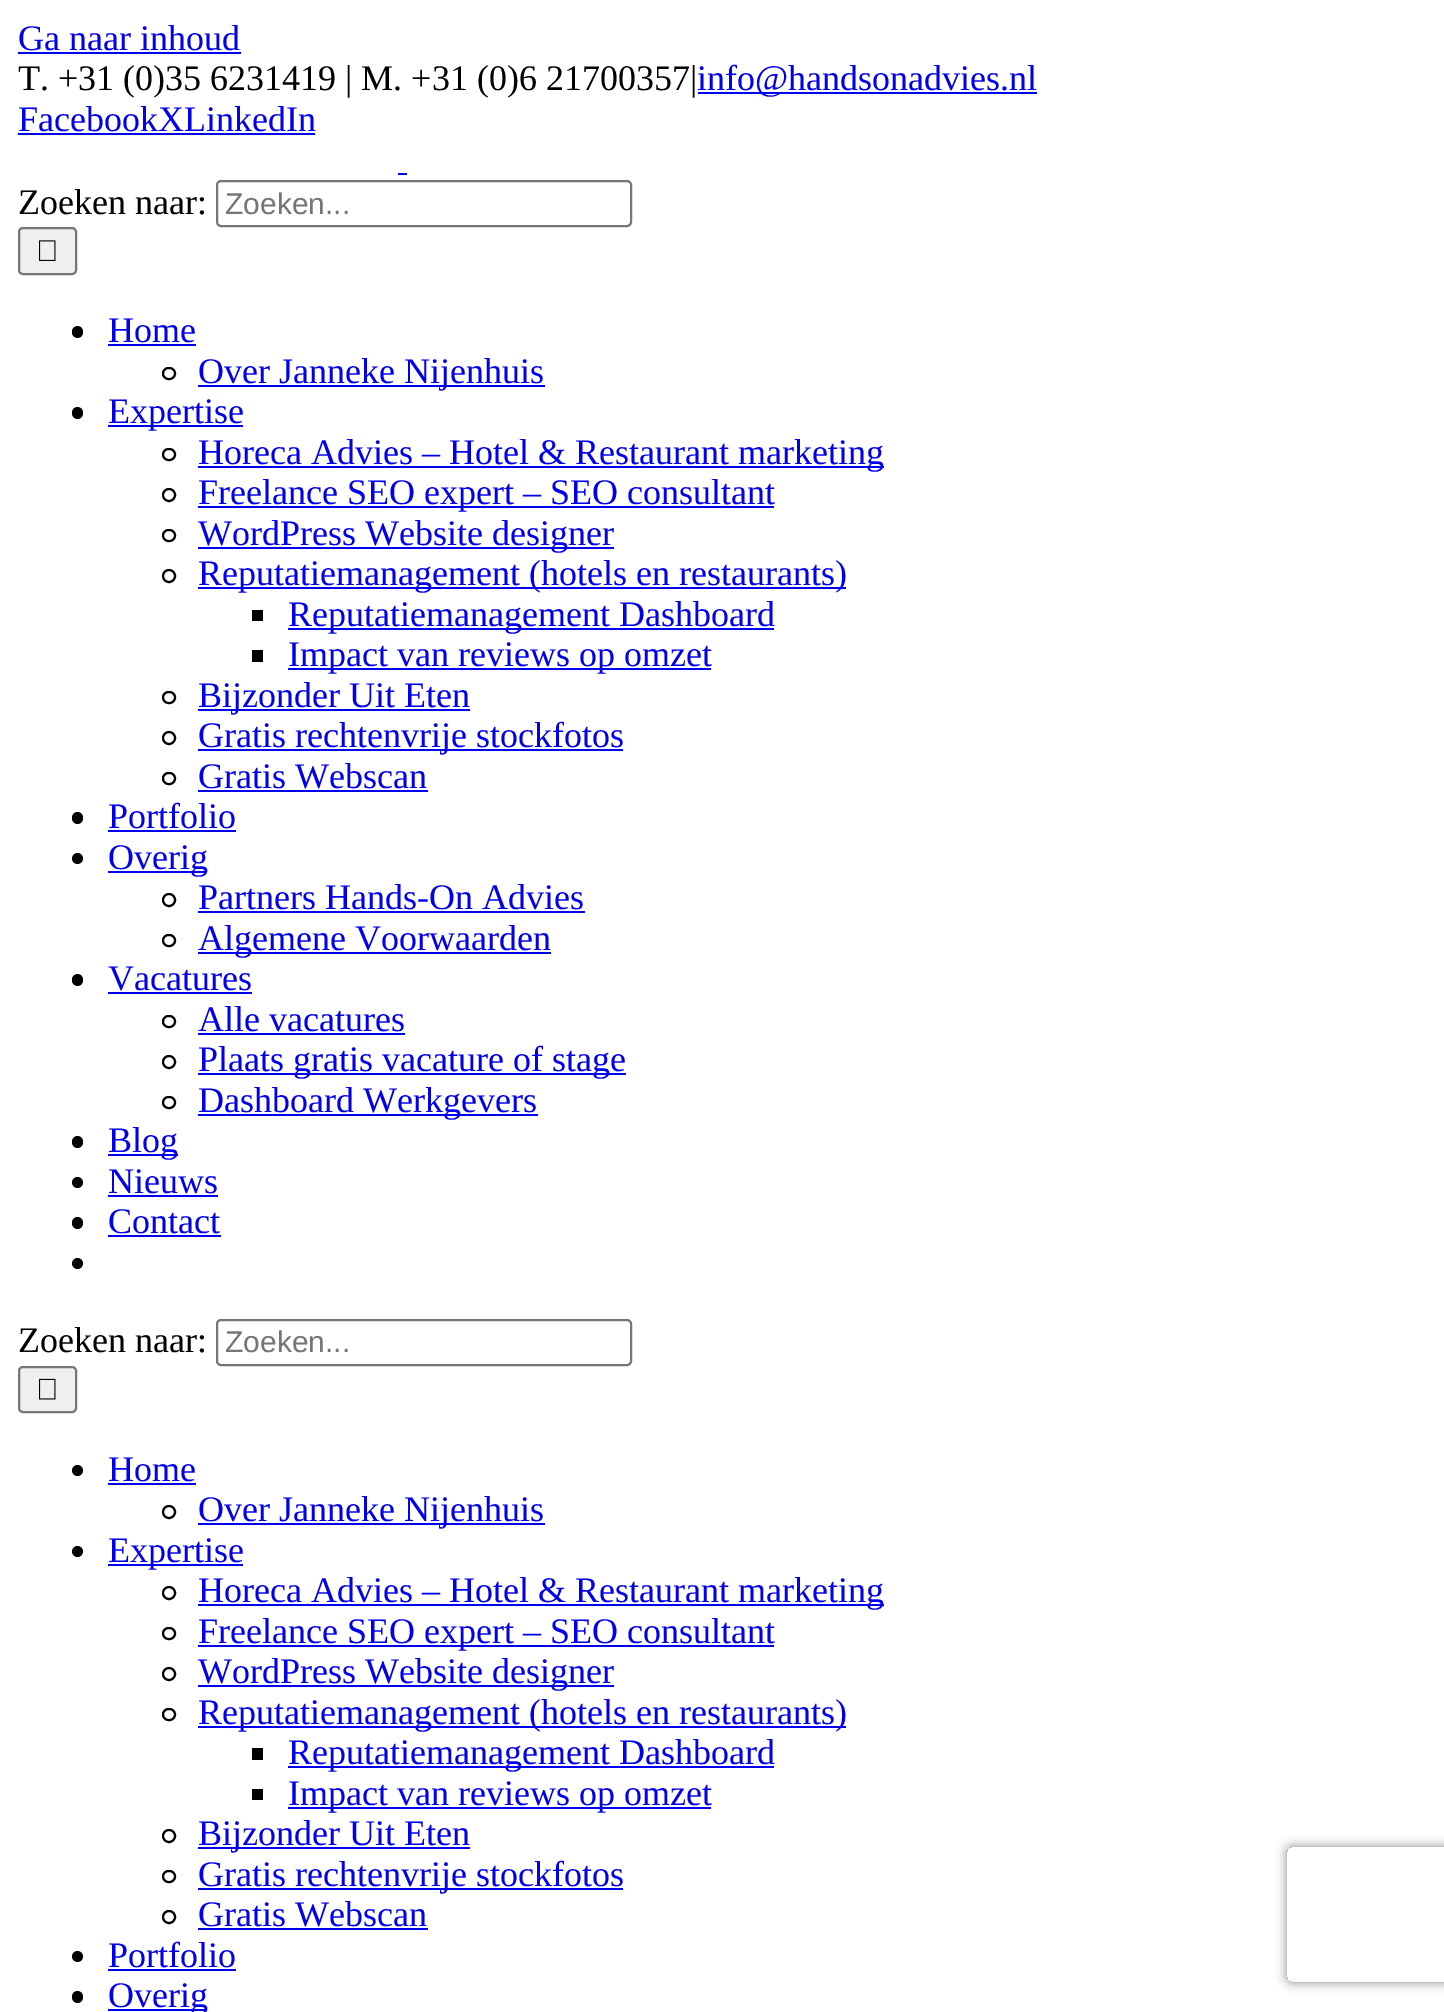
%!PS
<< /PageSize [1444 2012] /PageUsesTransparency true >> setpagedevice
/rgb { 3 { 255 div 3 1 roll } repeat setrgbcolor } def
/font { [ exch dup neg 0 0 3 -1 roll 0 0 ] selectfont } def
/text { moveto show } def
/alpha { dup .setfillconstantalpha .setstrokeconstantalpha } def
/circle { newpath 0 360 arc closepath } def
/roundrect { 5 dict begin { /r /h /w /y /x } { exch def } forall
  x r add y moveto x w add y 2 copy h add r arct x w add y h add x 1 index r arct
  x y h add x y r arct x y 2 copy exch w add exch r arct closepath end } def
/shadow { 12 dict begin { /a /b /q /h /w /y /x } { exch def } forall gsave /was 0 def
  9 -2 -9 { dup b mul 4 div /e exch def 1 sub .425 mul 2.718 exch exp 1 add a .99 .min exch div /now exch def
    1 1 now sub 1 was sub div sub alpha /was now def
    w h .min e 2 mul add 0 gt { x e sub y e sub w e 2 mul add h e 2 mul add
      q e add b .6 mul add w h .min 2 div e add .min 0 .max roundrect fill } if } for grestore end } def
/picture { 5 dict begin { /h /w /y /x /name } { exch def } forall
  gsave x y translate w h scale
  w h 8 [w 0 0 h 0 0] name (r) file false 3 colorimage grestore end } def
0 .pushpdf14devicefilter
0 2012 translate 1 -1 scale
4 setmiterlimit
255 255 255 rgb
0 0 1444 2012 rectfill
0 0 238 rgb
18 52 223 2 rectfill
698 92 339 2 rectfill
18 133 297 2 rectfill
398 173 9 2 rectfill
118 118 118 rgb
2 setlinewidth
217 181 414 45 4 roundrect stroke
239 239 239 rgb
19 228 57 46 4 roundrect gsave fill grestore
118 118 118 rgb
stroke
(img_01.rgb) 39 240 17 21 picture
0 0 0 rgb
72 326 11 12 5.5 roundrect fill
0 0 238 rgb
108 344 88 2 rectfill
0 0 0 rgb
163 368 12 11 5.5 roundrect stroke
0 0 238 rgb
198 385 347 2 rectfill
0 0 0 rgb
72 407 11 12 5.5 roundrect fill
0 0 238 rgb
108 425 135 2 rectfill
0 0 0 rgb
163 449 12 11 5.5 roundrect stroke
0 0 238 rgb
198 466 686 2 rectfill
0 0 0 rgb
169 495 6 circle stroke
0 0 238 rgb
198 506 576 2 rectfill
0 0 0 rgb
163 530 12 11 5.5 roundrect stroke
0 0 238 rgb
198 547 416 2 rectfill
0 0 0 rgb
169 576 6 circle stroke
0 0 238 rgb
198 587 648 2 rectfill
0 0 0 rgb
252 610 11 11 rectfill
0 0 238 rgb
288 628 486 2 rectfill
0 0 0 rgb
252 650 11 12 rectfill
0 0 238 rgb
288 668 423 2 rectfill
0 0 0 rgb
163 692 12 11 5.5 roundrect stroke
0 0 238 rgb
198 709 272 2 rectfill
0 0 0 rgb
169 738 6 circle stroke
0 0 238 rgb
198 749 425 2 rectfill
0 0 0 rgb
163 773 12 11 5.5 roundrect stroke
0 0 238 rgb
198 790 230 2 rectfill
0 0 0 rgb
72 812 11 12 5.5 roundrect fill
0 0 238 rgb
108 830 128 2 rectfill
0 0 0 rgb
77.5 858.5 5.5 circle fill
0 0 238 rgb
108 871 99 2 rectfill
0 0 0 rgb
169 900 6 circle stroke
0 0 238 rgb
198 911 387 2 rectfill
0 0 0 rgb
163 935 12 11 5.5 roundrect stroke
0 0 238 rgb
198 952 353 2 rectfill
0 0 0 rgb
72 974 11 12 5.5 roundrect fill
0 0 238 rgb
108 992 144 2 rectfill
0 0 0 rgb
163 1016 12 11 5.5 roundrect stroke
0 0 238 rgb
198 1033 207 2 rectfill
0 0 0 rgb
169 1062 6 circle stroke
0 0 238 rgb
198 1073 428 2 rectfill
0 0 0 rgb
163 1097 12 11 5.5 roundrect stroke
0 0 238 rgb
198 1114 340 2 rectfill
0 0 0 rgb
72 1136 11 12 5.5 roundrect fill
0 0 238 rgb
108 1154 70 2 rectfill
0 0 0 rgb
77.5 1182.5 5.5 circle fill
0 0 238 rgb
108 1195 110 2 rectfill
0 0 0 rgb
72 1217 11 12 5.5 roundrect fill
0 0 238 rgb
108 1235 113 2 rectfill
0 0 0 rgb
77.5 1263.5 5.5 circle fill
118 118 118 rgb
217 1320 414 45 4 roundrect stroke
239 239 239 rgb
19 1367 57 45 4 roundrect gsave fill grestore
118 118 118 rgb
stroke
(img_02.rgb) 39 1378 17 22 picture
0 0 0 rgb
77.5 1470.5 5.5 circle fill
0 0 238 rgb
108 1483 88 2 rectfill
0 0 0 rgb
169 1512 6 circle stroke
0 0 238 rgb
198 1523 347 2 rectfill
0 0 0 rgb
77.5 1551.5 5.5 circle fill
0 0 238 rgb
108 1564 135 2 rectfill
0 0 0 rgb
169 1593 6 circle stroke
0 0 238 rgb
198 1604 686 2 rectfill
0 0 0 rgb
163 1628 12 11 5.5 roundrect stroke
0 0 238 rgb
198 1645 576 2 rectfill
0 0 0 rgb
169 1674 6 circle stroke
0 0 238 rgb
198 1685 416 2 rectfill
0 0 0 rgb
163 1709 12 11 5.5 roundrect stroke
0 0 238 rgb
198 1726 648 2 rectfill
0 0 0 rgb
252 1748 11 12 rectfill
0 0 238 rgb
288 1766 486 2 rectfill
0 0 0 rgb
252 1789 11 11 rectfill
0 0 238 rgb
288 1807 423 2 rectfill
0 0 0 rgb
169 1836 6 circle stroke
0 0 238 rgb
198 1847 272 2 rectfill
0 0 0 rgb
163 1871 12 11 5.5 roundrect stroke
0 0 238 rgb
198 1888 425 2 rectfill
0 0 0 rgb
169 1917 6 circle stroke
0 0 238 rgb
198 1928 230 2 rectfill
0 0 0 rgb
77.5 1956.5 5.5 circle fill
0 0 238 rgb
108 1969 128 2 rectfill
0 0 0 rgb
72 1991 11 12 5.5 roundrect fill
0 0 238 rgb
108 2009 99 2 rectfill
gsave
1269 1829 moveto 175 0 rlineto 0 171 rlineto -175 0 rlineto closepath 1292 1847 moveto 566 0 rlineto 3 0 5 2 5 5 rcurveto 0 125 rlineto 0 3 -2 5 -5 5 rcurveto -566 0 rlineto -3 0 -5 -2 -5 -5 rcurveto 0 -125 rlineto 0 -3 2 -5 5 -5 rcurveto closepath eoclip newpath
128 128 128 rgb
1287 1847 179 135 5 5.5 1 shadow
grestore
/LiberationSerif-Regular 36 font
(Ga naar inhoud) 18 50 text
0 0 0 rgb
(T. +31 \(0\)35 6231419 | M. +31 \(0\)6 21700357|) 18 90 text
0 0 238 rgb
(info@handsonadvies.nl) 697 90 text
(FacebookXLinkedIn) 18 131 text
0 0 0 rgb
(Zoeken naar:) 18 214 text
/LiberationSans-Regular 30 font
117 117 117 rgb
(Zoeken...) 225 214 text
/LiberationSerif-Regular 36 font
0 0 238 rgb
(Home) 108 342 text
(Over Janneke Nijenhuis) 198 383 text
(Expertise) 108 423 text
(Horeca Advies – Hotel & Restaurant marketing) 198 464 text
(Freelance SEO expert – SEO consultant) 198 504 text
(WordPress Website designer) 198 545 text
(Reputatiemanagement \(hotels en restaurants\)) 198 585 text
(Reputatiemanagement Dashboard) 288 626 text
(Impact van reviews op omzet) 288 666 text
(Bijzonder Uit Eten) 198 707 text
(Gratis rechtenvrije stockfotos) 198 747 text
(Gratis Webscan) 198 788 text
(Portfolio) 108 828 text
(Overig) 108 869 text
(Partners Hands-On Advies) 198 909 text
(Algemene Voorwaarden) 198 950 text
(Vacatures) 108 990 text
(Alle vacatures) 198 1031 text
(Plaats gratis vacature of stage) 198 1071 text
(Dashboard Werkgevers) 198 1112 text
(Blog) 108 1152 text
(Nieuws) 108 1193 text
(Contact) 108 1233 text
0 0 0 rgb
(Zoeken naar:) 18 1352 text
/LiberationSans-Regular 30 font
117 117 117 rgb
(Zoeken...) 225 1352 text
/LiberationSerif-Regular 36 font
0 0 238 rgb
(Home) 108 1481 text
(Over Janneke Nijenhuis) 198 1521 text
(Expertise) 108 1562 text
(Horeca Advies – Hotel & Restaurant marketing) 198 1602 text
(Freelance SEO expert – SEO consultant) 198 1643 text
(WordPress Website designer) 198 1683 text
(Reputatiemanagement \(hotels en restaurants\)) 198 1724 text
(Reputatiemanagement Dashboard) 288 1764 text
(Impact van reviews op omzet) 288 1805 text
(Bijzonder Uit Eten) 198 1845 text
(Gratis rechtenvrije stockfotos) 198 1886 text
(Gratis Webscan) 198 1926 text
(Portfolio) 108 1967 text
(Overig) 108 2007 text
.poppdf14devicefilter showpage
